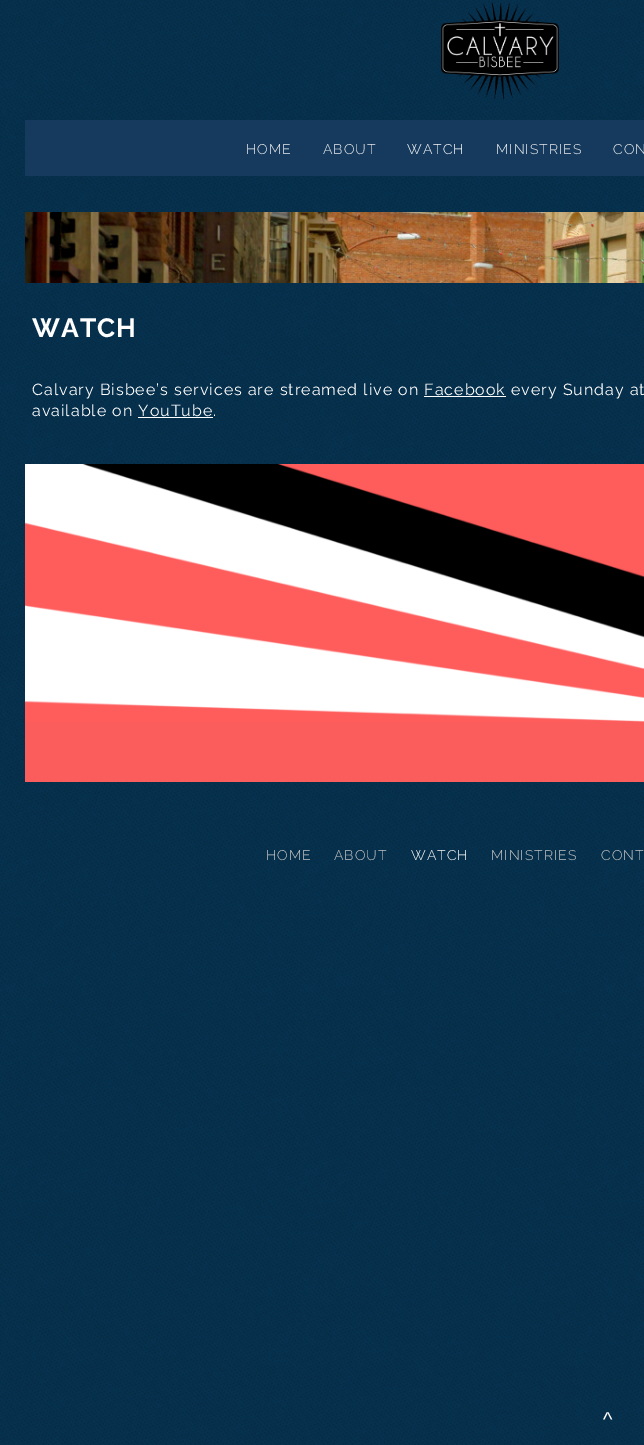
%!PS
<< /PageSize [644 1445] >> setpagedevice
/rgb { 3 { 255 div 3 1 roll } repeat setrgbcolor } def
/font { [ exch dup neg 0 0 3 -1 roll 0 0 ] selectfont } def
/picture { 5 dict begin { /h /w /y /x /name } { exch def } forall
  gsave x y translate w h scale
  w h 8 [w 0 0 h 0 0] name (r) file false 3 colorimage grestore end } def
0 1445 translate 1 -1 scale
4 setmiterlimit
8 61 97 rgb
0 0 644 1445 rectfill
(img_01.rgb) 0 0 644 1445 picture
(img_02.rgb) 441 1 118 99 picture
22 58 94 rgb
25 120 619 56 rectfill
8 61 97 rgb
25 176 619 654 rectfill
(img_03.rgb) 25 818 619 12 picture
(img_04.rgb) 25 176 619 642 picture
(img_05.rgb) 25 212 619 71 picture
255 255 255 rgb
424 396 82 1 rectfill
138 417 75 1 rectfill
251 92 92 rgb
25 722 619 60 rectfill
(img_06.rgb) 25 464 619 258 picture
/Raleway-Light 14 font
240 240 240 rgb
246 154 moveto 1 0 (HOME) ashow
323 154 moveto 1 0 (ABOUT) ashow
255 255 255 rgb
407 154 moveto 1 0 (WATCH) ashow
240 240 240 rgb
496 154 moveto 1 0 (MINISTRIES) ashow
613 154 moveto 1 0 (CON) ashow
/Raleway-Bold 26.5 font
255 255 255 rgb
32 337 moveto 1 0 (WATCH) ashow
/Raleway-Regular 16 font
32 395 moveto 1 0 (Calvary Bisbee’s services are streamed live on Facebook every Sunday at) ashow
32 416 moveto 1 0 (available on YouTube.) ashow
/Raleway-Light 14 font
200 199 199 rgb
266 860 moveto 1 0 (HOME) ashow
334 860 moveto 1 0 (ABOUT) ashow
255 255 255 rgb
411 860 moveto 1 0 (WATCH) ashow
200 199 199 rgb
491 860 moveto 1 0 (MINISTRIES) ashow
601 860 moveto 1 0 (CONT) ashow
/LiberationSans-Regular 20 font
255 255 255 rgb
603 1426 moveto 1 0 (^) ashow
showpage
